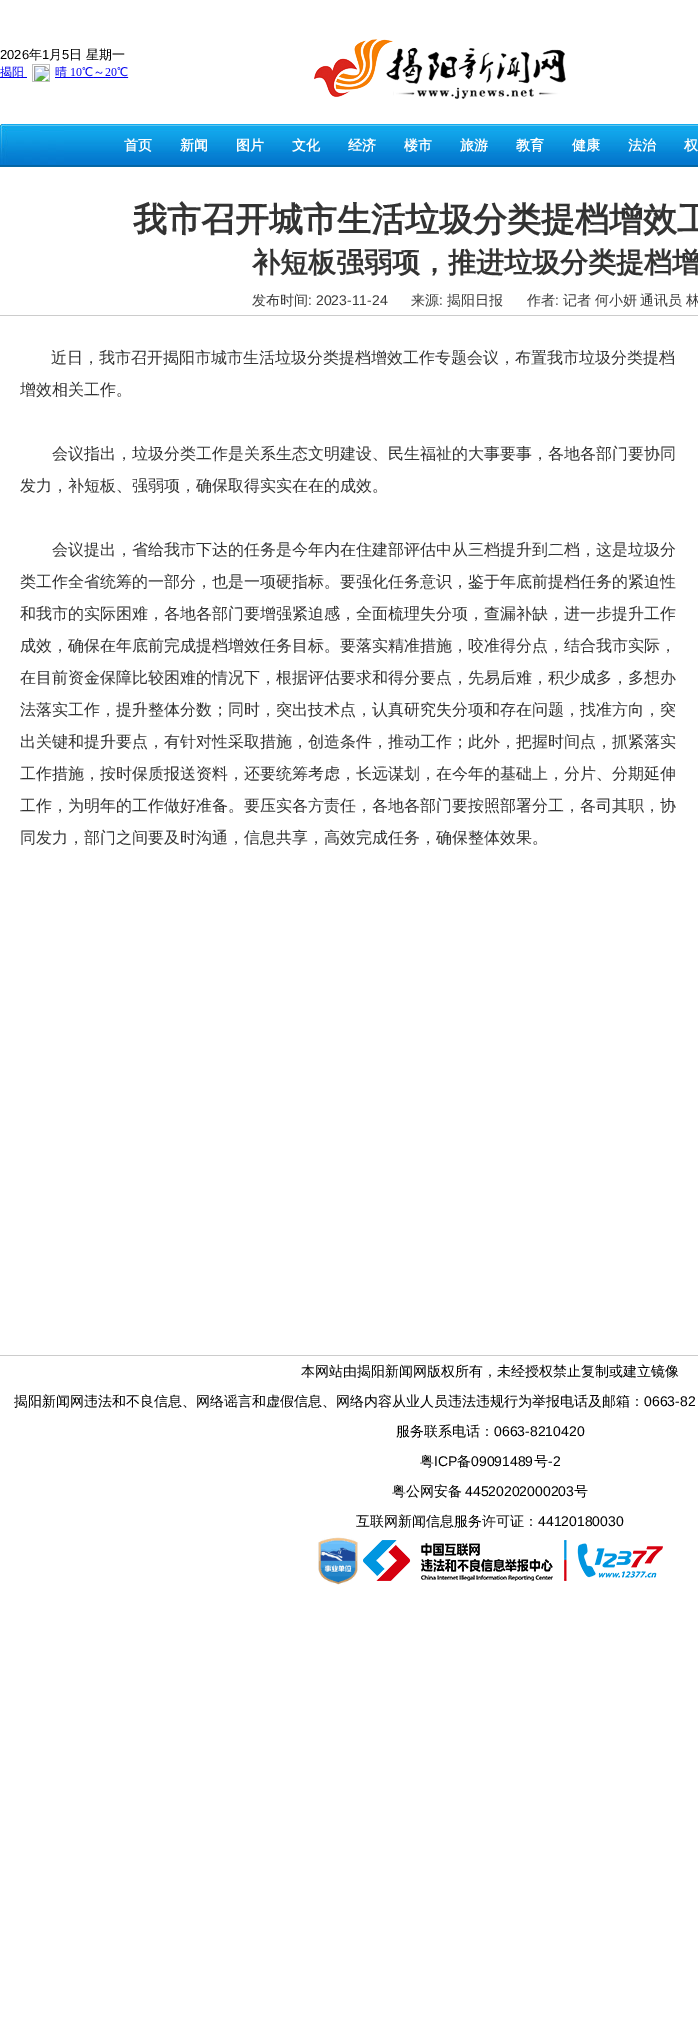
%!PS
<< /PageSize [698 2035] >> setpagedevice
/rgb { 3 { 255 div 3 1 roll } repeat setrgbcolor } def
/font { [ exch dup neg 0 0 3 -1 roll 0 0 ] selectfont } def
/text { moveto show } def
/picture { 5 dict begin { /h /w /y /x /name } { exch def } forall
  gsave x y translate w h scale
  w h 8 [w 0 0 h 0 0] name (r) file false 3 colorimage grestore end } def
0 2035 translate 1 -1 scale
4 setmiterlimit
255 255 255 rgb
0 0 698 2035 rectfill
(img_01.rgb) 0 64 129 18 picture
(img_02.rgb) 314 39 252 60 picture
(img_03.rgb) 0 124 698 43 picture
204 204 204 rgb
0 315 698 1 rectfill
0 1355 698 1 rectfill
(img_04.rgb) 318 1537 40 48 picture
(img_05.rgb) 363 1540 300 41 picture
/LiberationSans-Regular 13 font
0 0 0 rgb
(2026) 0 59 text
/WenQuanYiZenHei-Medium 13 font
(年) 29 59 text
/LiberationSans-Regular 13 font
(1) 42 59 text
/WenQuanYiZenHei-Medium 13 font
(月) 49 59 text
/LiberationSans-Regular 13 font
(5) 62 59 text
/WenQuanYiZenHei-Medium 13 font
(日 星期一) 69 59 text
/WenQuanYiZenHei-Bold 14 font
255 255 255 rgb
(首页) 124 150 text
(新闻) 180 150 text
(图片) 236 150 text
(文化) 292 150 text
(经济) 348 150 text
(楼市) 404 150 text
(旅游) 460 150 text
(教育) 516 150 text
(健康) 572 150 text
(法治) 628 150 text
(权) 684 150 text
/WenQuanYiZenHei-Bold 34 font
51 51 51 rgb
(我市召开城市生活垃圾分类提档增效工) 133 231 text
/WenQuanYiZenHei-Bold 28 font
(补短板强弱项，推进垃圾分类提档增) 252 272 text
/WenQuanYiZenHei-Medium 14 font
59 59 59 rgb
(发布时间) 252 305 text
/LiberationSans-Regular 14 font
(: 2023-11-24) 308 305 text
/WenQuanYiZenHei-Medium 14 font
(来源) 411 305 text
/LiberationSans-Regular 14 font
(:) 439 305 text
/WenQuanYiZenHei-Medium 14 font
(揭阳日报) 447 305 text
(作者) 527 305 text
/LiberationSans-Regular 14 font
(:) 555 305 text
/WenQuanYiZenHei-Medium 14 font
(记者 何小妍) 563 305 text
(通讯员 林) 640 305 text
/WenQuanYiZenHei-Medium 16 font
51 51 51 rgb
(近日，我市召开揭阳市城市生活垃圾分类提档增效工作专题会议，布置我市垃圾分类提档) 51 363 text
(增效相关工作。) 20 395 text
(会议指出，垃圾分类工作是关系生态文明建设、民生福祉的大事要事，各地各部门要协同) 52 459 text
(发力，补短板、强弱项，确保取得实实在在的成效。) 20 491 text
(会议提出，省给我市下达的任务是今年内在住建部评估中从三档提升到二档，这是垃圾分) 52 555 text
(类工作全省统筹的一部分，也是一项硬指标。要强化任务意识，鉴于年底前提档任务的紧迫性) 20 587 text
(和我市的实际困难，各地各部门要增强紧迫感，全面梳理失分项，查漏补缺，进一步提升工作) 20 619 text
(成效，确保在年底前完成提档增效任务目标。要落实精准措施，咬准得分点，结合我市实际，) 20 651 text
(在目前资金保障比较困难的情况下，根据评估要求和得分要点，先易后难，积少成多，多想办) 20 683 text
(法落实工作，提升整体分数；同时，突出技术点，认真研究失分项和存在问题，找准方向，突) 20 715 text
(出关键和提升要点，有针对性采取措施，创造条件，推动工作；此外，把握时间点，抓紧落实) 20 747 text
(工作措施，按时保质报送资料，还要统筹考虑，长远谋划，在今年的基础上，分片、分期延伸) 20 779 text
(工作，为明年的工作做好准备。要压实各方责任，各地各部门要按照部署分工，各司其职，协) 20 811 text
(同发力，部门之间要及时沟通，信息共享，高效完成任务，确保整体效果。) 20 843 text
/WenQuanYiZenHei-Medium 14 font
0 0 0 rgb
(本网站由揭阳新闻网版权所有，未经授权禁止复制或建立镜像) 301 1376 text
(揭阳新闻网违法和不良信息、网络谣言和虚假信息、网络内容从业人员违法违规行为举报电话及邮箱：) 14 1406 text
/LiberationSans-Regular 14 font
(0663-82) 644 1406 text
/WenQuanYiZenHei-Medium 14 font
(服务联系电话：) 396 1436 text
/LiberationSans-Regular 14 font
(0663-8210420) 494 1436 text
/WenQuanYiZenHei-Medium 14 font
(粤) 420 1466 text
/LiberationSans-Regular 14 font
(ICP) 434 1466 text
/WenQuanYiZenHei-Medium 14 font
(备) 457 1466 text
/LiberationSans-Regular 14 font
(09091489) 471 1466 text
/WenQuanYiZenHei-Medium 14 font
(号) 534 1466 text
/LiberationSans-Regular 14 font
(-2) 548 1466 text
/WenQuanYiZenHei-Medium 14 font
(粤公网安备) 392 1496 text
/LiberationSans-Regular 14 font
(44520202000203) 465 1496 text
/WenQuanYiZenHei-Medium 14 font
(号) 574 1496 text
(互联网新闻信息服务许可证：) 356 1526 text
/LiberationSans-Regular 14 font
(44120180030) 538 1526 text
showpage
